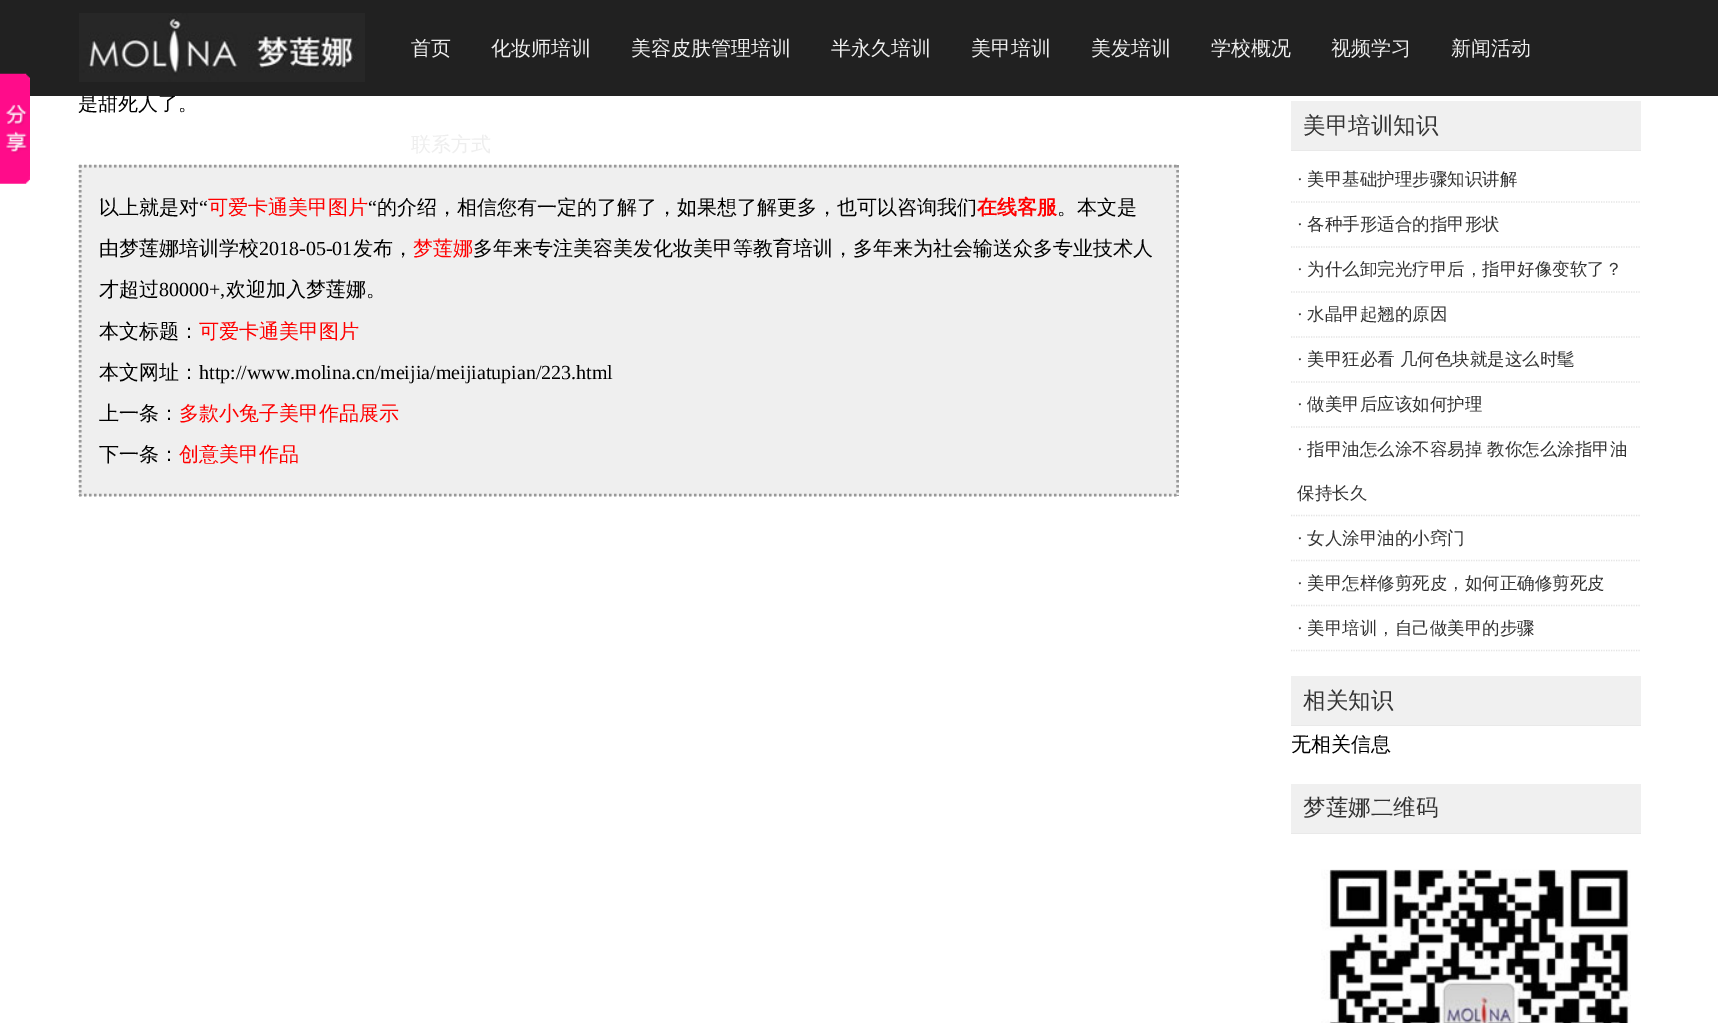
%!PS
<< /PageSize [1718 1023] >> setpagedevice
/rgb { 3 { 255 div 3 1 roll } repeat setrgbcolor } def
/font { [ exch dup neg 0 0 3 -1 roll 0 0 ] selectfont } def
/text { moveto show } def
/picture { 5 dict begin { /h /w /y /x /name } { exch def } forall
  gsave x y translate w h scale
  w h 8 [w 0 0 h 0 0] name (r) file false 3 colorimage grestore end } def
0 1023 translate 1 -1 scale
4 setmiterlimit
255 255 255 rgb
0 0 1718 1023 rectfill
239 239 239 rgb
79 165 1100 331 rectfill
153 153 153 rgb
2.5 setlinewidth
[2.5 2.5] 0 setdash
79 166 moveto 1100 0 rlineto stroke
1177.5 165 moveto 0 331 rlineto stroke
79 495 moveto 1100 0 rlineto stroke
80 165 moveto 0 331 rlineto stroke
240 240 240 rgb
1291 101 350 49 rectfill
233 233 233 rgb
1291 150 350 1 rectfill
228 228 228 rgb
1.2 setlinewidth
[1.25 1.25] 0 setdash
1291 202 moveto 350 0 rlineto stroke
1291 247 moveto 350 0 rlineto stroke
1291 292 moveto 350 0 rlineto stroke
1291 337 moveto 350 0 rlineto stroke
1291 382 moveto 350 0 rlineto stroke
1291 427 moveto 350 0 rlineto stroke
1291 515.5 moveto 350 0 rlineto stroke
1291 560.5 moveto 350 0 rlineto stroke
1291 605.5 moveto 350 0 rlineto stroke
1291 650.5 moveto 350 0 rlineto stroke
240 240 240 rgb
1291 676 350 49 rectfill
233 233 233 rgb
1291 725 350 1 rectfill
240 240 240 rgb
1291 784 350 49 rectfill
233 233 233 rgb
1291 833 350 1 rectfill
(img_03.rgb) 1321 869 310 154 picture
/WenQuanYiZenHei-Medium 20 font
238 238 238 rgb
(联系方式) 411 151 text
0 0 0 rgb
(是甜死人了。) 78 110 text
33 33 33 rgb
0 0 1718 96 rectfill
(img_01.rgb) 0 73 30 111 picture
(img_02.rgb) 79 13 286 69 picture
238 238 238 rgb
(新闻活动) 1451 55 text
(视频学习) 1331 55 text
(学校概况) 1211 55 text
(美发培训) 1091 55 text
(美甲培训) 971 55 text
(半永久培训) 831 55 text
(美容皮肤管理培训) 631 55 text
(化妆师培训) 491 55 text
(首页) 411 55 text
0 0 0 rgb
(以上就是对) 99 214 text
/LiberationSerif-Regular 20 font
(“) 199 214 text
/WenQuanYiZenHei-Medium 20 font
255 0 0 rgb
(可爱卡通美甲图片) 208 214 text
/LiberationSerif-Regular 20 font
0 0 0 rgb
(“) 368 214 text
/WenQuanYiZenHei-Medium 20 font
(的介绍，相信您有一定的了解了，如果想了解更多，也可以咨询我们) 377 214 text
/WenQuanYiZenHei-Bold 20 font
255 0 0 rgb
(在线客服) 977 214 text
/WenQuanYiZenHei-Medium 20 font
0 0 0 rgb
(。本文是) 1057 214 text
(由梦莲娜培训学校) 99 255 text
/LiberationSerif-Regular 20 font
(2018-05-01) 259 255 text
/WenQuanYiZenHei-Medium 20 font
(发布，) 353 255 text
255 0 0 rgb
(梦莲娜) 413 255 text
0 0 0 rgb
(多年来专注美容美发化妆美甲等教育培训，多年来为社会输送众多专业技术人) 473 255 text
(才超过) 99 296 text
/LiberationSerif-Regular 20 font
(80000+,) 159 296 text
/WenQuanYiZenHei-Medium 20 font
(欢迎加入梦莲娜。) 226 296 text
(本文标题：) 99 338 text
255 0 0 rgb
(可爱卡通美甲图片) 199 338 text
0 0 0 rgb
(本文网址：) 99 379 text
/LiberationSerif-Regular 20 font
(http://www.molina.cn/meijia/meijiatupian/223.html) 199 379 text
/WenQuanYiZenHei-Medium 20 font
(上一条：) 99 420 text
255 0 0 rgb
(多款小兔子美甲作品展示) 179 420 text
0 0 0 rgb
(下一条：) 99 461 text
255 0 0 rgb
(创意美甲作品) 179 461 text
/WenQuanYiZenHei-Medium 22.5 font
51 51 51 rgb
(美甲培训知识) 1303 133 text
/LiberationSerif-Regular 17.5 font
(·) 1297 185 text
/WenQuanYiZenHei-Medium 17.5 font
(美甲基础护理步骤知识讲解) 1307 185 text
/LiberationSerif-Regular 17.5 font
(·) 1297 230 text
/WenQuanYiZenHei-Medium 17.5 font
(各种手形适合的指甲形状) 1307 230 text
/LiberationSerif-Regular 17.5 font
(·) 1297 275 text
/WenQuanYiZenHei-Medium 17.5 font
(为什么卸完光疗甲后，指甲好像变软了？) 1307 275 text
/LiberationSerif-Regular 17.5 font
(·) 1297 320 text
/WenQuanYiZenHei-Medium 17.5 font
(水晶甲起翘的原因) 1307 320 text
/LiberationSerif-Regular 17.5 font
(·) 1297 365 text
/WenQuanYiZenHei-Medium 17.5 font
(美甲狂必看 几何色块就是这么时髦) 1307 365 text
/LiberationSerif-Regular 17.5 font
(·) 1297 410 text
/WenQuanYiZenHei-Medium 17.5 font
(做美甲后应该如何护理) 1307 410 text
/LiberationSerif-Regular 17.5 font
(·) 1297 455 text
/WenQuanYiZenHei-Medium 17.5 font
(指甲油怎么涂不容易掉 教你怎么涂指甲油) 1307 455 text
(保持长久) 1297 499 text
/LiberationSerif-Regular 17.5 font
(·) 1297 544 text
/WenQuanYiZenHei-Medium 17.5 font
(女人涂甲油的小窍门) 1307 544 text
/LiberationSerif-Regular 17.5 font
(·) 1297 589 text
/WenQuanYiZenHei-Medium 17.5 font
(美甲怎样修剪死皮，如何正确修剪死皮) 1307 589 text
/LiberationSerif-Regular 17.5 font
(·) 1297 634 text
/WenQuanYiZenHei-Medium 17.5 font
(美甲培训，自己做美甲的步骤) 1307 634 text
/WenQuanYiZenHei-Medium 22.5 font
(相关知识) 1303 708 text
/WenQuanYiZenHei-Medium 20 font
0 0 0 rgb
(无相关信息) 1291 751 text
/WenQuanYiZenHei-Medium 22.5 font
51 51 51 rgb
(梦莲娜二维码) 1303 815 text
showpage
